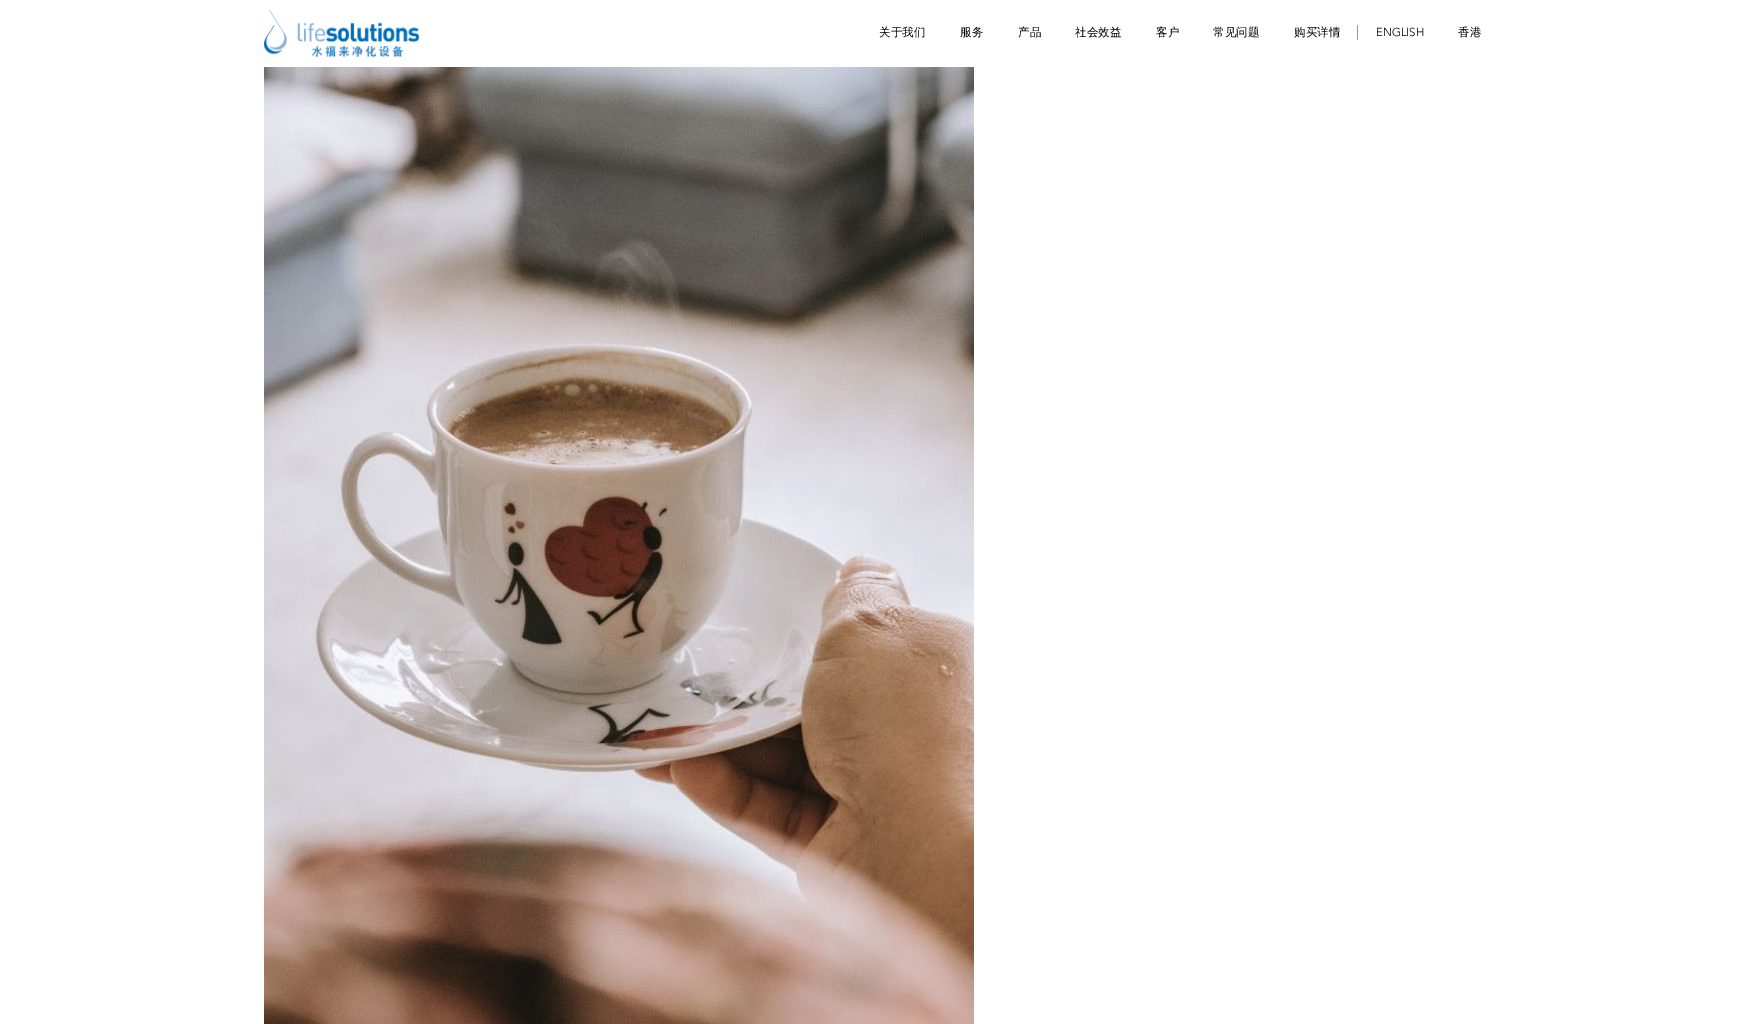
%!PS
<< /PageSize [1763 1024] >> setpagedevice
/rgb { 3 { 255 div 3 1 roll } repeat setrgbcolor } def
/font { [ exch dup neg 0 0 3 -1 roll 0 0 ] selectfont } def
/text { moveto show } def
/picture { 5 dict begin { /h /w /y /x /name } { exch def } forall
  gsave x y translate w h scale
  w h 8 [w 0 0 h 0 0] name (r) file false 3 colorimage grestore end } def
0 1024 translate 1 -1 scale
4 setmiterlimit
255 255 255 rgb
0 0 1763 1024 rectfill
(img_01.rgb) 264 10 155 47 picture
153 153 153 rgb
1357 25 1 15 rectfill
(img_02.rgb) 264 67 710 957 picture
/WenQuanYiZenHei-Medium 11.5 font
0 0 0 rgb
(关于我们) 879 36 text
(服务) 960 36 text
(产品) 1018 36 text
(社会效益) 1075 36 text
(客户) 1156 36 text
(常见问题) 1213 36 text
(购买详情) 1294 36 text
/Avenir-Light 11.5 font
(ENGLISH) 1376 36 text
/WenQuanYiZenHei-Medium 11.5 font
(香港) 1458 36 text
showpage
